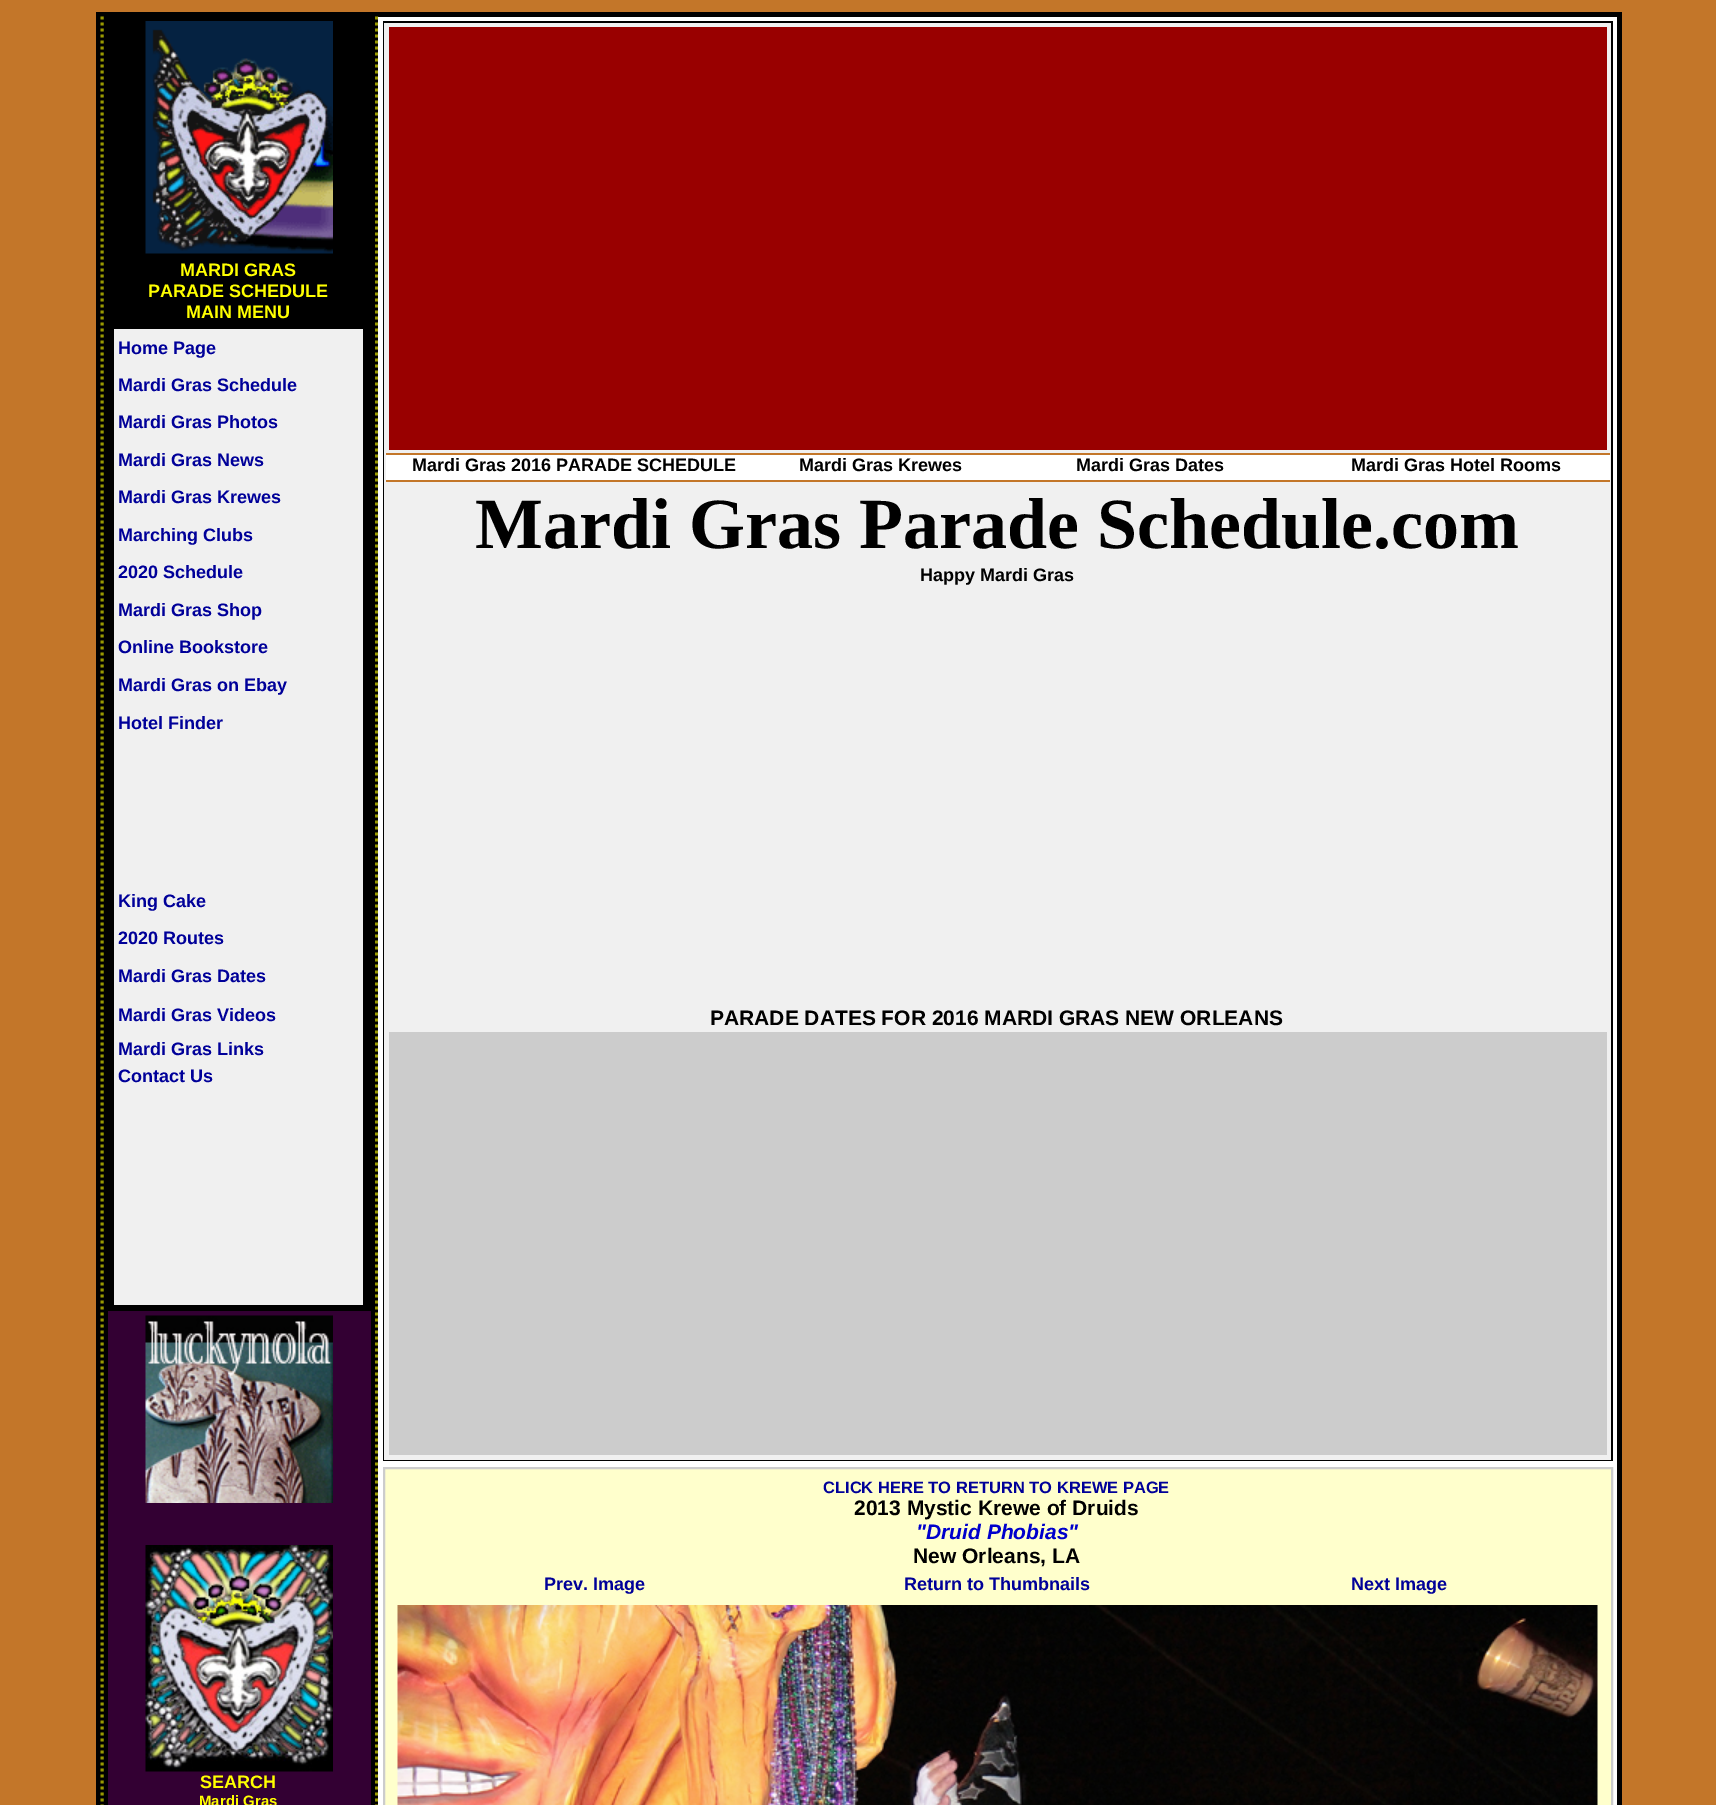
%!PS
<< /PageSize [1716 1805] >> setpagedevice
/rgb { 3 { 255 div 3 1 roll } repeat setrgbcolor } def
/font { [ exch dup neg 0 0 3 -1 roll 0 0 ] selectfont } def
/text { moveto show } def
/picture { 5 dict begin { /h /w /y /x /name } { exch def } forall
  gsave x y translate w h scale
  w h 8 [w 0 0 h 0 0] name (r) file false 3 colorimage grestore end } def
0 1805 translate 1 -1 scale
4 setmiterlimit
195 118 41 rgb
0 0 1716 1805 rectfill
0 0 0 rgb
96 12 1526 5 rectfill
1617 12 5 1793 rectfill
96 12 5 1793 rectfill
101 17 277 1788 rectfill
153 153 0 rgb
3 setlinewidth
[3 3] 0 setdash
376.5 16.5 moveto 0 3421.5 rlineto stroke
102 16.5 moveto 0 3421.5 rlineto stroke
(img_01.rgb) 145 21 188 233 picture
240 240 240 rgb
114 329 249 976 rectfill
51 0 51 rgb
108 1311 263 494 rectfill
(img_02.rgb) 145 1315 188 188 picture
(img_03.rgb) 145 1545 188 227 picture
255 255 255 rgb
378 17 1239 1788 rectfill
0 0 0 rgb
383 21 1230 1440 rectfill
240 240 240 rgb
384 23 1227 1437 rectfill
153 0 0 rgb
389 27 1218 423 rectfill
255 255 255 rgb
386 455 1224 25 rectfill
195 118 41 rgb
386 453 1224 2 rectfill
386 480 1224 2 rectfill
204 204 204 rgb
389 1032 1218 423 rectfill
255 255 204 rgb
384 1468 moveto 1228 0 rlineto 0 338 rlineto -1228 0 rlineto closepath gsave fill grestore
204 204 204 rgb
2 setlinewidth
[] 0 setdash
stroke
(img_04.rgb) 397 1605 1201 200 picture
/LiberationSans-Bold 18 font
255 255 0 rgb
(MARDI GRAS) 180 276 text
(PARADE SCHEDULE) 148 297 text
(MAIN MENU) 186 318 text
0 0 153 rgb
(Home Page) 118 354 text
(Mardi Gras Schedule) 118 391 text
(Mardi Gras Photos) 118 428 text
(Mardi Gras News) 118 466 text
(Mardi Gras Krewes) 118 503 text
(Marching Clubs) 118 541 text
(2020 Schedule) 118 578 text
(Mardi Gras Shop) 118 616 text
(Online Bookstore) 118 653 text
(Mardi Gras on Ebay) 118 691 text
(Hotel Finder) 118 729 text
(King Cake) 118 907 text
(2020 Routes) 118 944 text
(Mardi Gras Dates) 118 982 text
(Mardi Gras Videos) 118 1021 text
(Mardi Gras Links) 118 1055 text
(Contact Us) 118 1082 text
255 255 0 rgb
(SEARCH) 200 1788 text
/LiberationSans-Bold 15 font
(Mardi Gras) 199 1806 text
/LiberationSans-Bold 18 font
0 0 0 rgb
(Mardi Gras 2016 PARADE SCHEDULE) 412 471 text
(Mardi Gras Krewes) 799 471 text
(Mardi Gras Dates) 1076 471 text
(Mardi Gras Hotel Rooms) 1351 471 text
/LiberationSerif-Bold 72 font
(Mardi Gras Parade Schedule.com) 475 548 text
/LiberationSans-Bold 18 font
(Happy Mardi Gras) 920 581 text
/LiberationSans-Bold 21 font
(PARADE DATES FOR 2016 MARDI GRAS NEW ORLEANS) 710 1025 text
/LiberationSans-Bold 16.5 font
0 0 153 rgb
(CLICK HERE TO RETURN TO KREWE PAGE) 823 1493 text
/LiberationSans-Bold 21 font
0 0 0 rgb
(2013 Mystic Krewe of Druids) 854 1515 text
/LiberationSans-BoldItalic 21 font
0 0 204 rgb
("Druid Phobias") 916 1539 text
/LiberationSans-Bold 21 font
0 0 0 rgb
(New Orleans, LA) 913 1563 text
/LiberationSans-Bold 18 font
0 0 153 rgb
(Prev. Image) 544 1590 text
(Return to Thumbnails) 904 1590 text
(Next Image) 1351 1590 text
showpage
